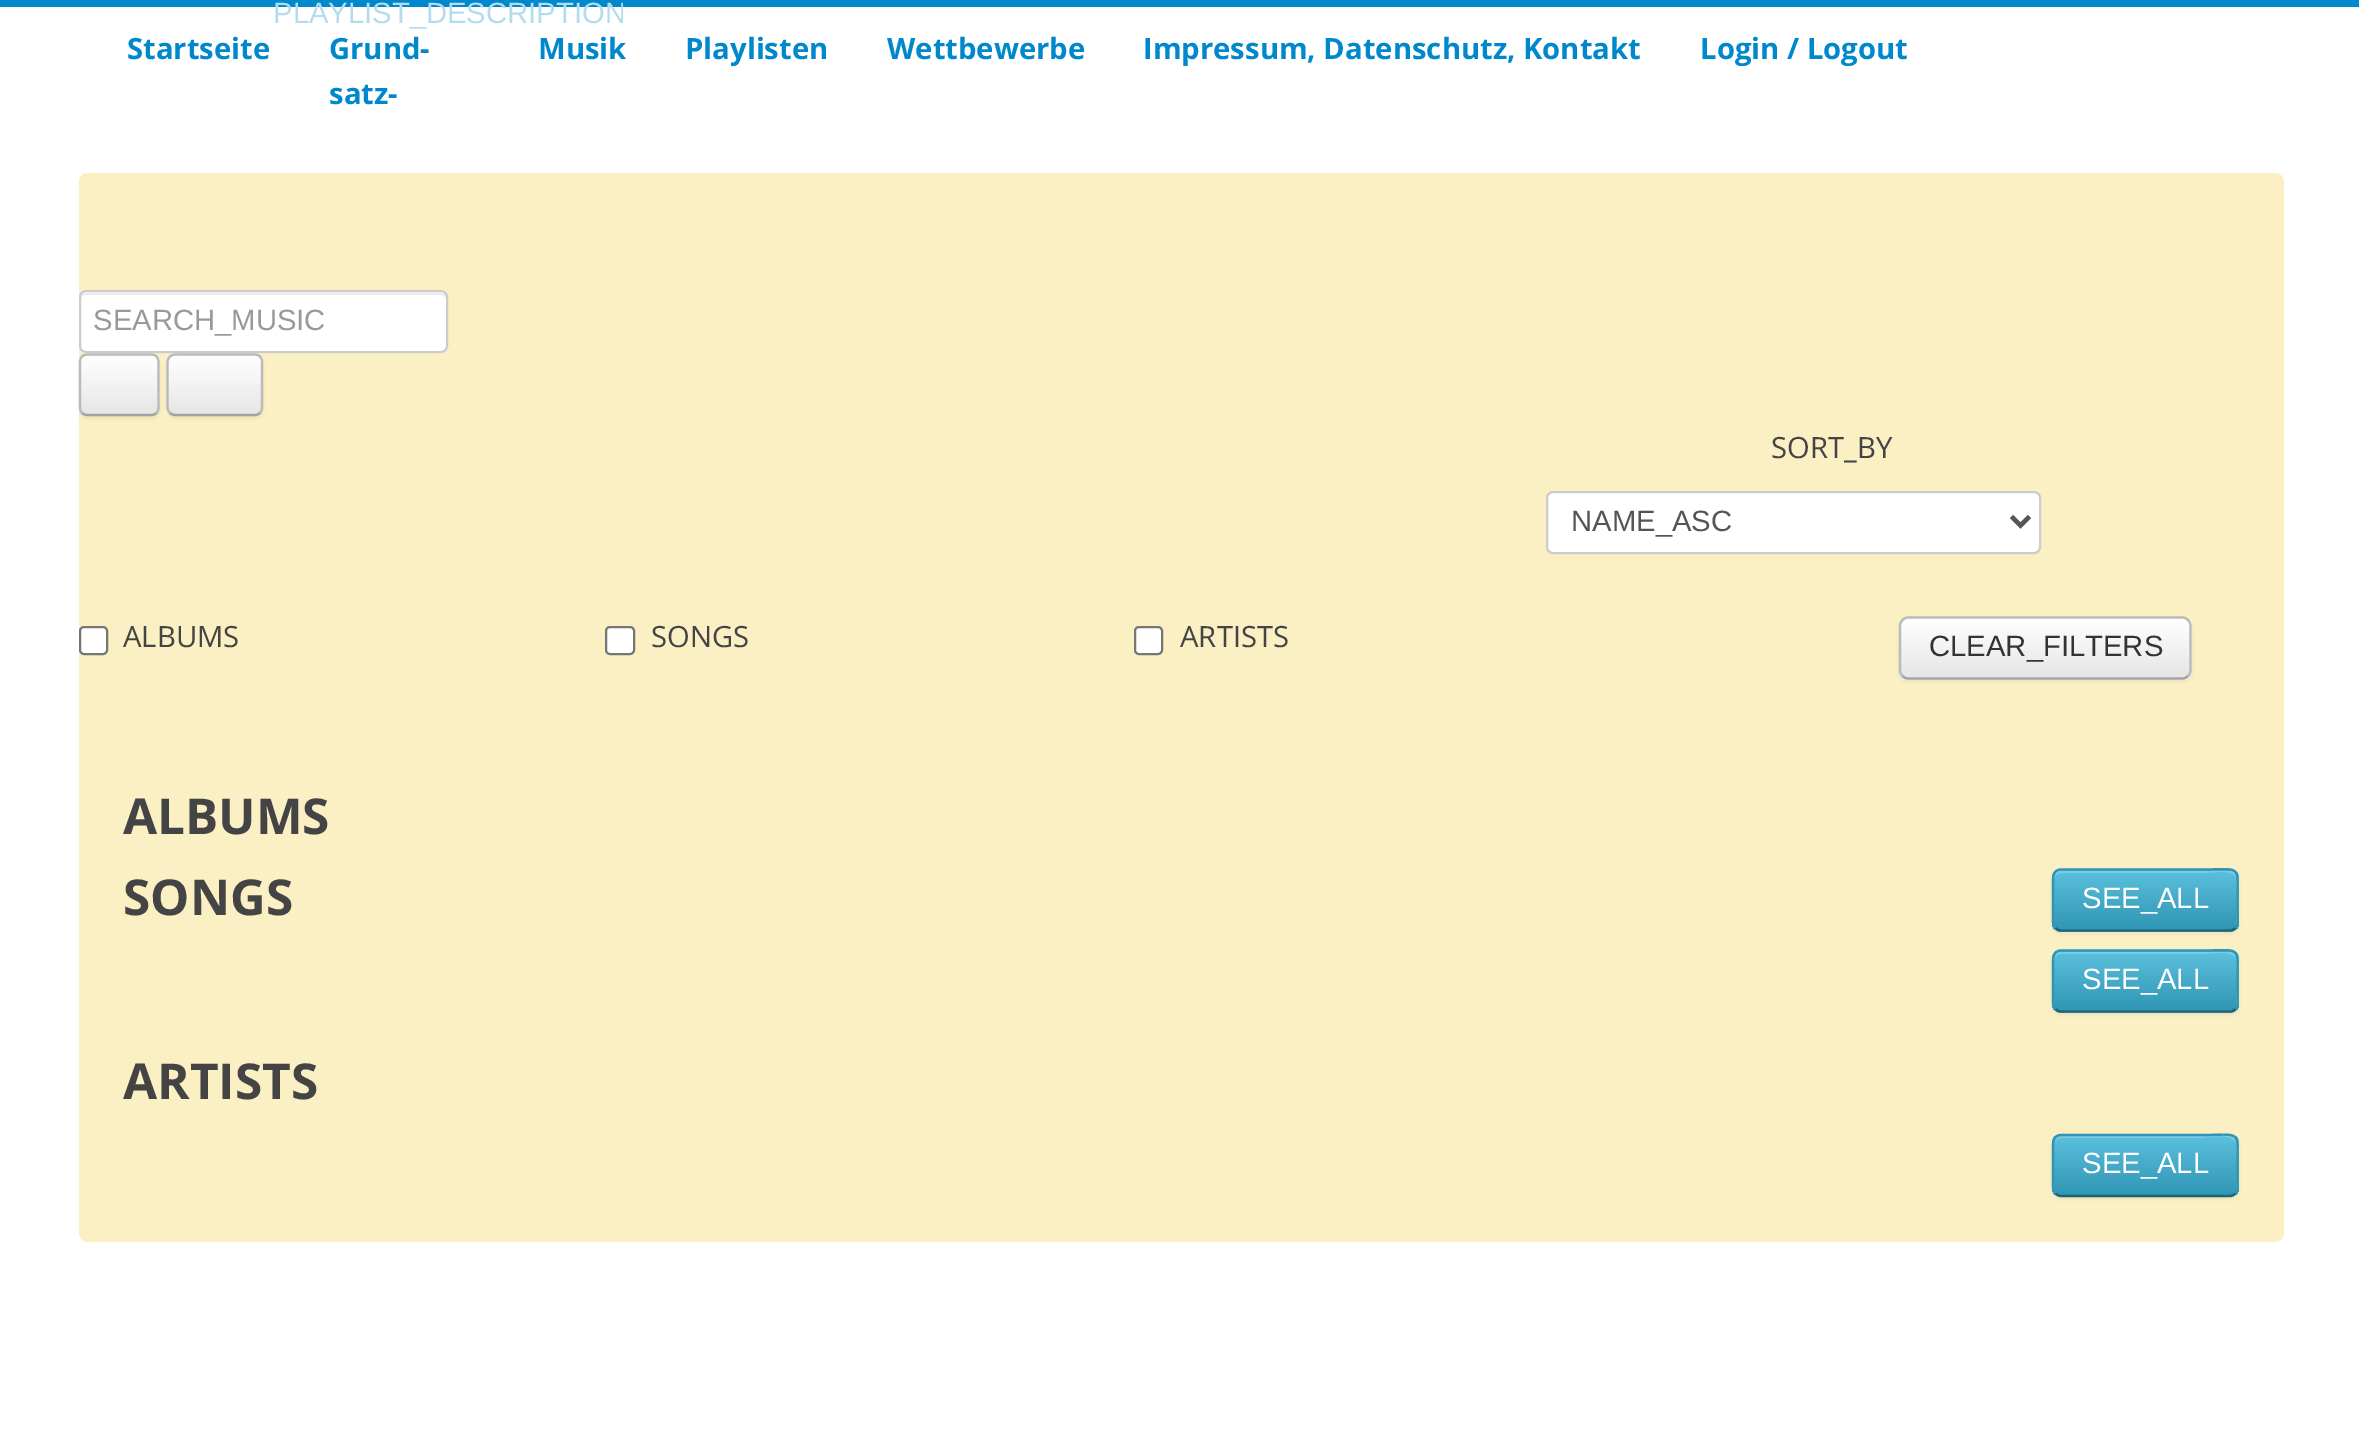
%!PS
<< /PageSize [2359 1431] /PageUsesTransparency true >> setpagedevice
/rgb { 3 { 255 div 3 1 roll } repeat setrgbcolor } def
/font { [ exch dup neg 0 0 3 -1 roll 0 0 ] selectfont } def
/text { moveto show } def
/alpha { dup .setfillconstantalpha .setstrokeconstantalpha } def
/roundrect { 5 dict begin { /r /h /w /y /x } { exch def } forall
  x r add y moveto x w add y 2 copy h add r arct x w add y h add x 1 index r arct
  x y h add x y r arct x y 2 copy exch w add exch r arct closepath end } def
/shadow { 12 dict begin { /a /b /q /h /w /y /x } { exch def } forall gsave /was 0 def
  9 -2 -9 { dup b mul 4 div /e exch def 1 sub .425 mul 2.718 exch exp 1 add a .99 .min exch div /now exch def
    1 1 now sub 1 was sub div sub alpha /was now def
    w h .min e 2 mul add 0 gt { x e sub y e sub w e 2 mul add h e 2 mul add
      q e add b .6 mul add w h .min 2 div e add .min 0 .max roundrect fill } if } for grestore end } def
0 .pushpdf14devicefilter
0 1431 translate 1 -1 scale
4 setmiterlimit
255 255 255 rgb
0 0 2359 1431 rectfill
0 136 204 rgb
0 0 2359 7 rectfill
250 240 195 rgb
79 173 2205 1069 9 roundrect fill
255 255 255 rgb
79 290 369 63 7 roundrect fill
236 236 236 rgb
86 295 moveto 355 0 rlineto 2 0 5 2 5 4 rcurveto 0 -1 rlineto 0 -3 -2 -5 -5 -5 rcurveto -355 0 rlineto -3 0 -5 2 -5 5 rcurveto 0 1 rlineto 0 -2 2 -4 5 -4 rcurveto closepath fill
204 204 204 rgb
2 setlinewidth
80 291 367 61 6 roundrect stroke
0 0 0 rgb
79 356 81 63 9 2 0.05 shadow
245 245 245 rgb
79 353 81 63 9 roundrect fill
gsave
79 353 81 63 9 roundrect clip newpath
gsave 79 356 moveto 81 0 rlineto 0 58 rlineto -81 0 rlineto closepath clip newpath
<< /ShadingType 2 /ColorSpace /DeviceRGB /Coords [119 356 119 414] /Extend [true true] /Function << /FunctionType 2 /Domain [0 1] /C0 [1 1 1] /C1 [0.902 0.902 0.902] /N 1 >> >> shfill grestore
grestore
162 162 162 rgb
2.2 setlinewidth
156.5 413 moveto -1.5 1.5 -3.5 2 -5.5 2 rcurveto -63 0 rlineto -2.5 0 -4.5 -0.5 -6 -2 rcurveto stroke
187 187 187 rgb
82 413 moveto -1.5 -1.5 -2 -3.5 -2 -6 rcurveto 0 -45 rlineto 0 -2 0.5 -4 2 -5.5 rcurveto 1.5 -1.5 3.5 -2 6 -2 rcurveto 63 0 rlineto 2 0 4 0.5 5.5 2 rcurveto 1.5 1.5 2 3.5 2 5.5 rcurveto 0 45 rlineto 0 2.5 -0.5 4.5 -2 6 rcurveto stroke
0 0 0 rgb
167 356 96 63 9 2 0.05 shadow
245 245 245 rgb
167 353 96 63 9 roundrect fill
gsave
167 353 96 63 9 roundrect clip newpath
gsave 167 356 moveto 96 0 rlineto 0 58 rlineto -96 0 rlineto closepath clip newpath
<< /ShadingType 2 /ColorSpace /DeviceRGB /Coords [215 356 215 414] /Extend [true true] /Function << /FunctionType 2 /Domain [0 1] /C0 [1 1 1] /C1 [0.902 0.902 0.902] /N 1 >> >> shfill grestore
grestore
255 255 255 rgb
176 358 moveto 78 0 rlineto 4 0 7 3 7 6 rcurveto 0 -11 -13 -8 -20 -8 rcurveto -52 0 rlineto -7 0 -20 -3 -20 8 rcurveto 0 -3 3 -6 7 -6 rcurveto closepath fill
162 162 162 rgb
260 413 moveto -1.5 1.5 -3.5 2 -6 2 rcurveto -78.5 0 rlineto -2 0 -4 -0.5 -5.5 -2 rcurveto stroke
187 187 187 rgb
170 413 moveto -1.5 -1.5 -2.5 -3.5 -2.5 -6 rcurveto 0 -45 rlineto 0 -2 1 -4 2.5 -5.5 rcurveto 1.5 -1.5 3.5 -2 5.5 -2 rcurveto 78.5 0 rlineto 2.5 0 4.5 0.5 6 2 rcurveto 1.5 1.5 2 3.5 2 5.5 rcurveto 0 45 rlineto 0 2.5 -0.5 4.5 -2 6 rcurveto stroke
255 255 255 rgb
1547 492 493 61 6 roundrect gsave fill grestore
204 204 204 rgb
2 setlinewidth
stroke
85 85 85 rgb
4.5 setlinewidth
2011.5 516.5 moveto 9 9 rlineto 9 -9 rlineto stroke
255 255 255 rgb
80 627 27 27 4 roundrect gsave fill grestore
118 118 118 rgb
2 setlinewidth
stroke
255 255 255 rgb
606 627 28 27 4 roundrect gsave fill grestore
118 118 118 rgb
stroke
255 255 255 rgb
1135 627 27 27 4 roundrect gsave fill grestore
118 118 118 rgb
stroke
0 0 0 rgb
1899 619 293 63 9 2 0.05 shadow
245 245 245 rgb
1899 617 293 63 9 roundrect fill
gsave
1899 617 293 63 9 roundrect clip newpath
gsave 1899 619 moveto 293 0 rlineto 0 58 rlineto -293 0 rlineto closepath clip newpath
<< /ShadingType 2 /ColorSpace /DeviceRGB /Coords [2045 619 2045 677] /Extend [true true] /Function << /FunctionType 2 /Domain [0 1] /C0 [1 1 1] /C1 [0.902 0.902 0.902] /N 1 >> >> shfill grestore
grestore
162 162 162 rgb
2.2 setlinewidth
2188 676 moveto -1.5 1.5 -3.5 2.5 -5.5 2.5 rcurveto -274.5 0 rlineto -2 0 -4 -1 -5.5 -2.5 rcurveto stroke
187 187 187 rgb
1902.5 676 moveto -1.5 -1.5 -2.5 -3.5 -2.5 -5.5 rcurveto 0 -45 rlineto 0 -2 1 -4 2.5 -5.5 rcurveto 1.5 -1.5 3.5 -2.5 5.5 -2.5 rcurveto 274.5 0 rlineto 2 0 4 1 5.5 2.5 rcurveto 1.5 1.5 2.5 3.5 2.5 5.5 rcurveto 0 45 rlineto 0 2 -1 4 -2.5 5.5 rcurveto stroke
0 0 0 rgb
2052 871 187 63 9 2 0.05 shadow
73 175 205 rgb
2052 869 187 63 9 roundrect fill
gsave
2052 869 187 63 9 roundrect clip newpath
gsave 2052 871 moveto 187 0 rlineto 0 58 rlineto -187 0 rlineto closepath clip newpath
<< /ShadingType 2 /ColorSpace /DeviceRGB /Coords [2145 871 2145 929] /Extend [true true] /Function << /FunctionType 2 /Domain [0 1] /C0 [0.357 0.753 0.871] /C1 [0.184 0.588 0.706] /N 1 >> >> shfill grestore
grestore
0.2 alpha
255 255 255 rgb
2061 873 moveto 141 0 rlineto 10 0 32 -5 34 6 rcurveto 0 47 rlineto 1 -1 1 -3 1 -4 rcurveto 0 -44 rlineto 0 -4 -3 -7 -7 -7 rcurveto -169 0 rlineto -4 0 -7 3 -7 7 rcurveto 0 2 rlineto 0 -4 3 -7 7 -7 rcurveto closepath fill
1 alpha
31 99 119 rgb
2235.5 928 moveto -1.5 1.5 -3.5 2.5 -5.5 2.5 rcurveto -169 0 rlineto -2 0 -4 -1 -5.5 -2.5 rcurveto stroke
47 150 180 rgb
2055.5 928 moveto -3.5 -3.5 -2.5 -9 -2.5 -13 rcurveto 0 -30 rlineto 0 -6 -1 -15.5 8 -15.5 rcurveto 140.5 0 rlineto 40 0 36 -6 36 30.5 rcurveto 0 15 rlineto 0 4 1 9.5 -2 13 rcurveto stroke
0 0 0 rgb
2052 952 187 63 9 2 0.05 shadow
73 175 205 rgb
2052 950 187 63 9 roundrect fill
gsave
2052 950 187 63 9 roundrect clip newpath
gsave 2052 952 moveto 187 0 rlineto 0 58 rlineto -187 0 rlineto closepath clip newpath
<< /ShadingType 2 /ColorSpace /DeviceRGB /Coords [2145 952 2145 1010] /Extend [true true] /Function << /FunctionType 2 /Domain [0 1] /C0 [0.357 0.753 0.871] /C1 [0.184 0.588 0.706] /N 1 >> >> shfill grestore
grestore
0.2 alpha
255 255 255 rgb
2061 954 moveto 141 0 rlineto 10 0 32 -5 34 6 rcurveto 0 47 rlineto 1 -1 1 -3 1 -4 rcurveto 0 -44 rlineto 0 -4 -3 -7 -7 -7 rcurveto -169 0 rlineto -4 0 -7 3 -7 7 rcurveto 0 2 rlineto 0 -4 3 -7 7 -7 rcurveto closepath fill
1 alpha
31 99 119 rgb
2235.5 1009 moveto -1.5 1.5 -3.5 2.5 -5.5 2.5 rcurveto -169 0 rlineto -2 0 -4 -1 -5.5 -2.5 rcurveto stroke
47 150 180 rgb
2055.5 1009 moveto -3.5 -3.5 -2.5 -9 -2.5 -13 rcurveto 0 -30 rlineto 0 -6 -1 -15.5 8 -15.5 rcurveto 140.5 0 rlineto 40 0 36 -6 36 30.5 rcurveto 0 15 rlineto 0 4 1 9.5 -2 13 rcurveto stroke
0 0 0 rgb
2052 1136 187 63 9 2 0.05 shadow
gsave
2052 1134 187 63 9 roundrect clip newpath
gsave 2052 1136 moveto 187 0 rlineto 0 59 rlineto -187 0 rlineto closepath clip newpath
<< /ShadingType 2 /ColorSpace /DeviceRGB /Coords [2145 1136 2145 1195] /Extend [true true] /Function << /FunctionType 2 /Domain [0 1] /C0 [0.357 0.753 0.871] /C1 [0.184 0.588 0.706] /N 1 >> >> shfill grestore
grestore
0.2 alpha
255 255 255 rgb
2061 1138 moveto 141 0 rlineto 1 0 31 -7 34 6 rcurveto 0 48 rlineto 1 -1 1 -3 1 -4 rcurveto 0 -45 rlineto 0 -4 -3 -7 -7 -7 rcurveto -169 0 rlineto -4 0 -7 3 -7 7 rcurveto 0 2 rlineto 0 -3 3 -7 7 -7 rcurveto closepath fill
1 alpha
31 99 119 rgb
2235.5 1193.5 moveto -1.5 1.5 -3.5 2.5 -5.5 2.5 rcurveto -169 0 rlineto -2 0 -4 -1 -5.5 -2.5 rcurveto stroke
47 150 180 rgb
2055.5 1193.5 moveto -3.5 -3.5 -2.5 -9 -2.5 -13 rcurveto 0 -30 rlineto 0 -6 -1 -15.5 8 -15.5 rcurveto 140.5 0 rlineto 40 0 36 -6 36 30.5 rcurveto 0 15 rlineto 0 4 1 9.5 -2 13 rcurveto stroke
gsave
259 -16 364 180 5 roundrect clip newpath
/LiberationSans-Regular 29.25 font
180 220 240 rgb
(PLAYLIST_DESCRIPTION) 273 23 text
grestore
/LiberationSans-Regular 29.25 font
153 153 153 rgb
(SEARCH_MUSIC) 93 330 text
/OpenSans-Regular 29.25 font
68 68 68 rgb
(SORT_BY) 1771 458 text
/LiberationSans-Regular 29.25 font
85 85 85 rgb
(NAME_ASC) 1571 531 text
/OpenSans-Regular 29.25 font
68 68 68 rgb
(ALBUMS) 123 647 text
(SONGS) 651 647 text
(ARTISTS) 1180 647 text
/LiberationSans-Regular 29.25 font
51 51 51 rgb
(CLEAR_FILTERS) 1929 656 text
/OpenSans-Bold 49.5 font
68 68 68 rgb
(ALBUMS) 123 834 text
/LiberationSans-Regular 29.25 font
255 255 255 rgb
(SEE_ALL) 2082 908 text
/OpenSans-Bold 49.5 font
68 68 68 rgb
(SONGS) 123 915 text
/LiberationSans-Regular 29.25 font
255 255 255 rgb
(SEE_ALL) 2082 989 text
/OpenSans-Bold 49.5 font
68 68 68 rgb
(ARTISTS) 123 1099 text
/LiberationSans-Regular 29.25 font
255 255 255 rgb
(SEE_ALL) 2082 1173 text
/OpenSans-Bold 29.25 font
0 136 204 rgb
(Startseite) 127 59 text
(Grund-) 329 59 text
(satz-) 329 104 text
(Musik) 538 59 text
(Playlisten) 685 59 text
(Wettbewerbe) 887 59 text
(Impressum, Datenschutz, Kontakt) 1143 59 text
(Login / Logout) 1700 59 text
.poppdf14devicefilter showpage
